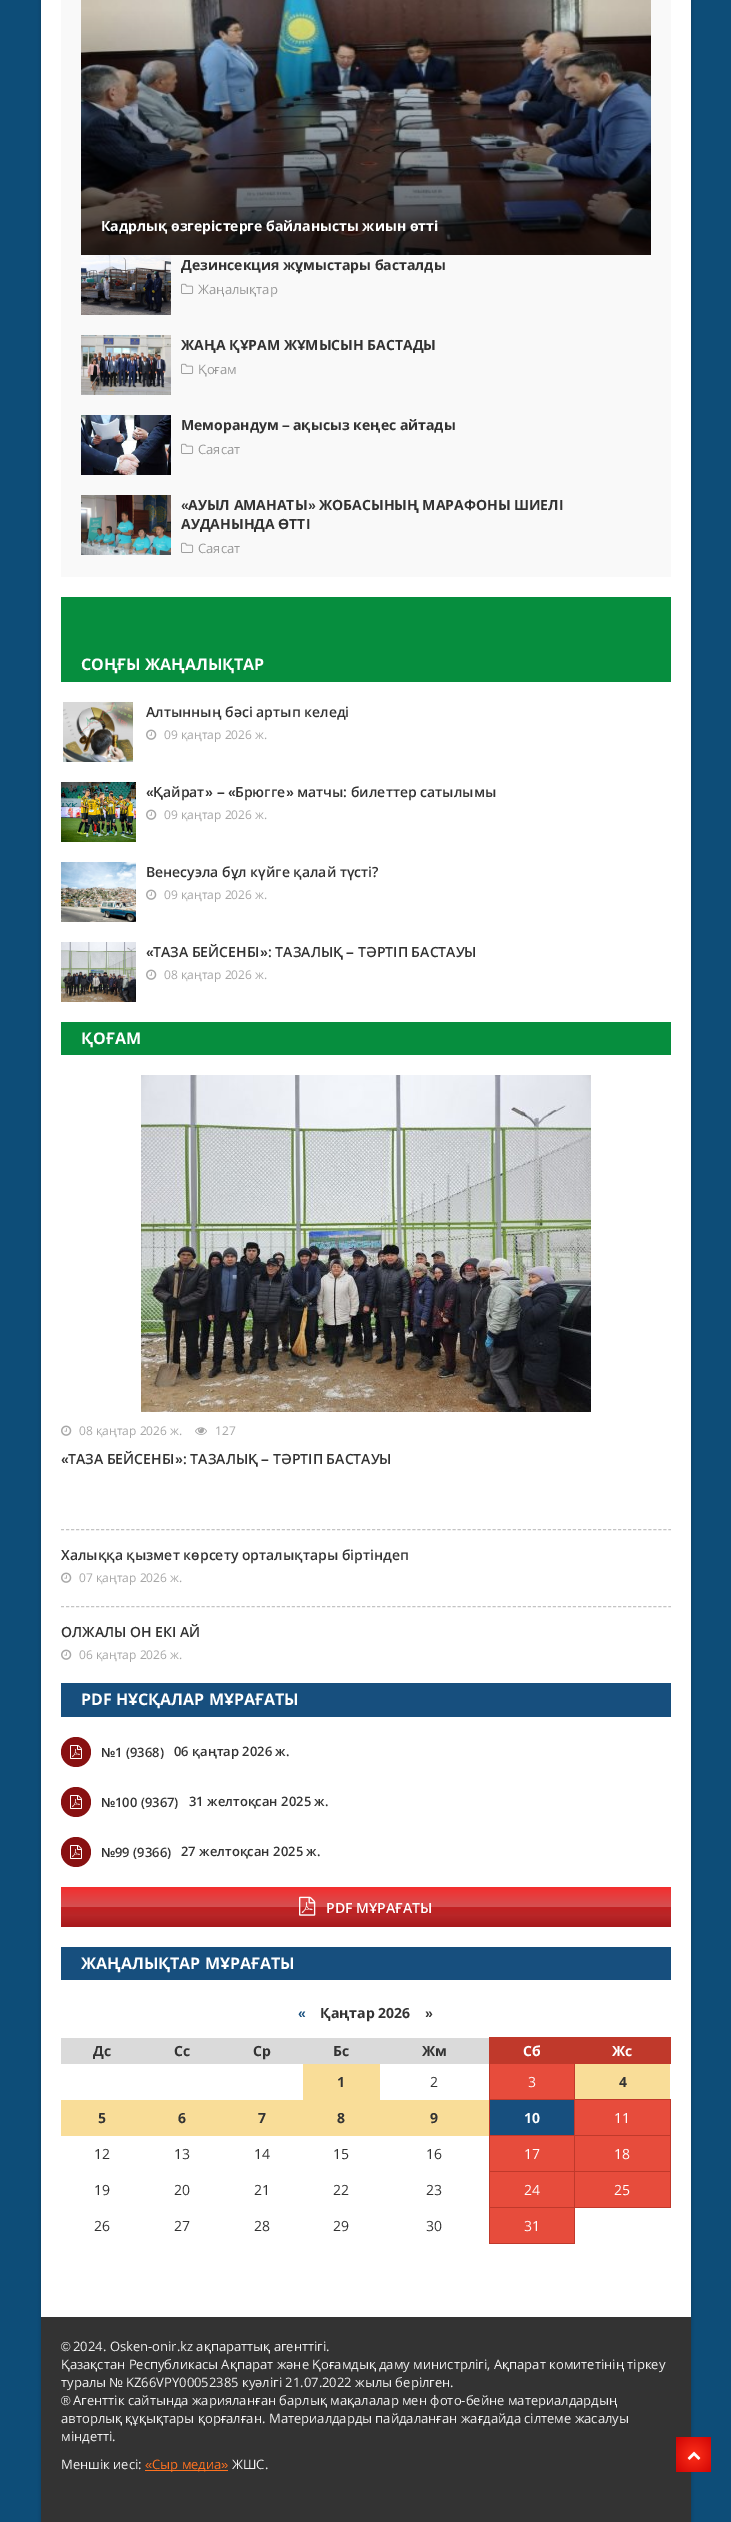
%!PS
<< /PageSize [731 2522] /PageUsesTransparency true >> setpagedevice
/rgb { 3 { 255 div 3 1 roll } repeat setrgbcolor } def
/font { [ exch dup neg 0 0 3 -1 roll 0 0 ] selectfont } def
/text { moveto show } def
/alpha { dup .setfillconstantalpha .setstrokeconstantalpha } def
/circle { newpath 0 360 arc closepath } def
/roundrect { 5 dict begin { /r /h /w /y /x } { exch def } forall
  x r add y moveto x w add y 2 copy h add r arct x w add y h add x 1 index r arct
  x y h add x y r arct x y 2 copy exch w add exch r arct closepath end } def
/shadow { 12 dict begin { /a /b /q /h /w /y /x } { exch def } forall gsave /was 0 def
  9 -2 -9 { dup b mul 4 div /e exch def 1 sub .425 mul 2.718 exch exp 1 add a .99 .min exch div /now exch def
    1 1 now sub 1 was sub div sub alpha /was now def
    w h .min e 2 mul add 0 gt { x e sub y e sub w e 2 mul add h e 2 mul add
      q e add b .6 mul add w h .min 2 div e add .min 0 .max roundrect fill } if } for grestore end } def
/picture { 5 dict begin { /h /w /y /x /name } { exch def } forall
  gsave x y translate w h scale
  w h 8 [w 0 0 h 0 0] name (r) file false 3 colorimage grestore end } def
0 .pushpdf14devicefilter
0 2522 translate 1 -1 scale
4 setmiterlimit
13 77 120 rgb
0 0 731 2522 rectfill
0 0 0 rgb
41 -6 650 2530 0 2 0.2 shadow
255 255 255 rgb
41 0 650 2317 rectfill
249 249 249 rgb
61 0 610 577 rectfill
(img_01.rgb) 81 0 570 255 picture
(img_02.rgb) 81 255 90 60 picture
(img_03.rgb) 181 283 13 11 picture
(img_04.rgb) 81 335 90 60 picture
(img_03.rgb) 181 363 13 11 picture
(img_05.rgb) 81 415 90 60 picture
(img_03.rgb) 181 443 13 11 picture
(img_06.rgb) 81 495 90 60 picture
(img_03.rgb) 181 542 13 11 picture
6 142 62 rgb
61 597 610 85 rectfill
(img_07.rgb) 63 702 70 60 picture
(img_08.rgb) 146 729 11 11 picture
(img_09.rgb) 61 782 75 60 picture
(img_08.rgb) 146 809 11 11 picture
(img_10.rgb) 61 862 75 60 picture
(img_08.rgb) 146 889 11 11 picture
(img_11.rgb) 61 942 75 60 picture
(img_08.rgb) 146 969 11 11 picture
61 1022 610 33 rectfill
(img_12.rgb) 141 1075 450 337 picture
(img_08.rgb) 61 1425 11 11 picture
(img_13.rgb) 195 1427 12 8 picture
196 196 196 rgb
[3 2.02] 0 setdash
61 1529.5 moveto 610 0 rlineto stroke
(img_08.rgb) 61 1572 11 11 picture
61 1606.5 moveto 610 0 rlineto stroke
(img_08.rgb) 61 1649 11 11 picture
23 79 126 rgb
61 1683 610 34 rectfill
136 17 18 rgb
76 1752 15 circle fill
(img_14.rgb) 70 1745 12 14 picture
76 1802 15 circle fill
(img_14.rgb) 70 1795 12 14 picture
76 1852 15 circle fill
(img_14.rgb) 70 1845 12 14 picture
gsave 61 1887 610 40 3 roundrect clip newpath
<< /ShadingType 2 /ColorSpace /DeviceRGB /Coords [366 1887 366 1927] /Extend [true true] /Function << /FunctionType 3 /Domain [0 1] /Functions [<< /FunctionType 2 /Domain [0 1] /C0 [0.957 0.18 0.18] /C1 [0.831 0.318 0.322] /N 1 >> << /FunctionType 2 /Domain [0 1] /C0 [0.831 0.318 0.322] /C1 [0.765 0.129 0.133] /N 1 >> << /FunctionType 2 /Domain [0 1] /C0 [0.765 0.129 0.133] /C1 [0.725 0.149 0.157] /N 1 >> << /FunctionType 2 /Domain [0 1] /C0 [0.725 0.149 0.157] /C1 [0.655 0.098 0.102] /N 1 >>] /Bounds [0.5 0.51 0.71] /Encode [0 1 0 1 0 1 0 1] >> >> shfill grestore
(img_15.rgb) 299 1896 17 20 picture
23 79 126 rgb
61 1947 610 33 rectfill
218 218 218 rgb
61 2038 428 26 rectfill
192 57 43 rgb
489 2038 181 26 rectfill
489 2037 182 1 rectfill
670 2037 1 27 rectfill
249 221 152 rgb
303 2064 77 36 rectfill
231 76 60 rgb
490 2064 84 35 rectfill
192 57 43 rgb
574 2099 97 1 rectfill
574 2135 97 1 rectfill
574 2171 97 1 rectfill
670 2171 1 37 rectfill
489 2207 86 1 rectfill
574 2207 1 37 rectfill
574 2207 97 1 rectfill
574 2171 1 37 rectfill
489 2171 86 1 rectfill
574 2135 1 37 rectfill
489 2135 86 1 rectfill
574 2099 1 37 rectfill
489 2099 86 1 rectfill
574 2063 1 37 rectfill
249 221 152 rgb
575 2064 95 35 rectfill
61 2100 428 36 rectfill
23 79 126 rgb
490 2100 84 35 rectfill
192 57 43 rgb
489 2243 86 1 rectfill
489 2207 1 37 rectfill
489 2171 1 37 rectfill
489 2135 1 37 rectfill
489 2063 1 73 rectfill
231 76 60 rgb
575 2100 95 35 rectfill
192 57 43 rgb
670 2135 1 37 rectfill
670 2099 1 37 rectfill
231 76 60 rgb
490 2136 84 35 rectfill
575 2136 95 35 rectfill
490 2172 84 35 rectfill
575 2172 95 35 rectfill
490 2208 84 35 rectfill
51 51 51 rgb
41 2317 650 205 rectfill
255 114 32 rgb
145 2470 83 1 rectfill
gsave 676 2437 moveto 35 0 rlineto 0 35 rlineto -35 0 rlineto closepath clip newpath 694 2455 translate 25 25 scale
<< /ShadingType 3 /ColorSpace /DeviceRGB /Coords [0 0 0 0 0 1] /Extend [true true] /Function << /FunctionType 2 /Domain [0 1] /C0 [1 0.188 0.098] /C1 [0.812 0.016 0.016] /N 1 >> >> shfill grestore
(img_16.rgb) 687 2451 14 9 picture
/OpenSans-Bold 14 font
255 255 255 rgb
(Кадрлық өзгерістерге байланысты жиын өтті) 101 231 text
gsave
181 255 470 19 rectclip
51 51 51 rgb
(Дезинсекция жұмыстары басталды) 181 270 text
grestore
/OpenSans-Regular 13 font
153 153 153 rgb
(Жаңалықтар) 198 294 text
/OpenSans-Bold 14 font
51 51 51 rgb
(ЖАҢА ҚҰРАМ ЖҰМЫСЫН БАСТАДЫ) 181 350 text
/OpenSans-Regular 13 font
153 153 153 rgb
(Қоғам) 198 374 text
/OpenSans-Bold 14 font
51 51 51 rgb
(Меморандум) 181 430 text
/LiberationSans-Bold 14 font
(–) 282 430 text
/OpenSans-Bold 14 font
(ақысыз кеңес айтады) 293 430 text
/OpenSans-Regular 13 font
153 153 153 rgb
(Саясат) 198 454 text
/LiberationSans-Bold 14 font
51 51 51 rgb
(«) 181 510 text
/OpenSans-Bold 14 font
(АУЫЛ АМАНАТЫ) 188 510 text
/LiberationSans-Bold 14 font
(») 308 510 text
/OpenSans-Bold 14 font
(ЖОБАСЫНЫҢ МАРАФОНЫ ШИЕЛІ) 319 510 text
(АУДАНЫНДА ӨТТІ) 181 529 text
/OpenSans-Regular 13 font
153 153 153 rgb
(Саясат) 198 553 text
/OpenSans-Bold 16 font
255 255 255 rgb
(СОҢҒЫ ЖАҢАЛЫҚТАР) 81 670 text
/OpenSans-SemiBold 14 font
51 51 51 rgb
(Алтынның бәсі артып келеді) 146 717 text
/OpenSans-Regular 12 font
167 167 167 rgb
(09 қаңтар 2026 ж.) 164 739 text
/LiberationSans-Bold 14 font
51 51 51 rgb
(«) 146 797 text
/OpenSans-SemiBold 14 font
(Қайрат) 153 797 text
/LiberationSans-Bold 14 font
(» – «) 205 797 text
/OpenSans-SemiBold 14 font
(Брюгге) 235 797 text
/LiberationSans-Bold 14 font
(») 286 797 text
/OpenSans-SemiBold 14 font
(матчы: билеттер сатылымы) 297 797 text
/OpenSans-Regular 12 font
167 167 167 rgb
(09 қаңтар 2026 ж.) 164 819 text
/OpenSans-SemiBold 14 font
51 51 51 rgb
(Венесуэла бұл күйге қалай түсті?) 146 877 text
/OpenSans-Regular 12 font
167 167 167 rgb
(09 қаңтар 2026 ж.) 164 899 text
/LiberationSans-Bold 14 font
51 51 51 rgb
(«) 146 957 text
/OpenSans-SemiBold 14 font
(ТАЗА БЕЙСЕНБІ) 153 957 text
/LiberationSans-Bold 14 font
(») 260 957 text
/OpenSans-SemiBold 14 font
(: ТАЗАЛЫҚ) 268 957 text
/LiberationSans-Bold 14 font
(–) 346 957 text
/OpenSans-SemiBold 14 font
(ТӘРТІП БАСТАУЫ) 358 957 text
/OpenSans-Regular 12 font
167 167 167 rgb
(08 қаңтар 2026 ж.) 164 979 text
/OpenSans-Bold 16 font
255 255 255 rgb
(ҚОҒАМ) 81 1044 text
/OpenSans-Regular 12 font
167 167 167 rgb
(08 қаңтар 2026 ж.) 79 1435 text
(127) 215 1435 text
/LiberationSans-Bold 14 font
51 51 51 rgb
(«) 61 1464 text
/OpenSans-SemiBold 14 font
(ТАЗА БЕЙСЕНБІ) 68 1464 text
/LiberationSans-Bold 14 font
(») 175 1464 text
/OpenSans-SemiBold 14 font
(: ТАЗАЛЫҚ) 183 1464 text
/LiberationSans-Bold 14 font
(–) 261 1464 text
/OpenSans-SemiBold 14 font
(ТӘРТІП БАСТАУЫ) 273 1464 text
(Халыққа қызмет көрсету орталықтары біртіндеп) 61 1560 text
/OpenSans-Regular 12 font
167 167 167 rgb
(07 қаңтар 2026 ж.) 79 1582 text
/OpenSans-SemiBold 14 font
51 51 51 rgb
(ОЛЖАЛЫ ОН ЕКІ АЙ) 61 1637 text
/OpenSans-Regular 12 font
167 167 167 rgb
(06 қаңтар 2026 ж.) 79 1659 text
/OpenSans-Bold 16 font
255 255 255 rgb
(PDF НҰСҚАЛАР МҰРАҒАТЫ) 81 1705 text
/LiberationSans-Bold 13 font
51 51 51 rgb
(№) 101 1757 text
/OpenSans-SemiBold 13 font
(1 \(9368\)) 115 1757 text
(06 қаңтар 2026 ж.) 174 1756 text
/LiberationSans-Bold 13 font
(№) 101 1807 text
/OpenSans-SemiBold 13 font
(100 \(9367\)) 115 1807 text
(31 желтоқсан 2025 ж.) 189 1806 text
/LiberationSans-Bold 13 font
(№) 101 1857 text
/OpenSans-SemiBold 13 font
(99 \(9366\)) 115 1857 text
(27 желтоқсан 2025 ж.) 181 1856 text
/OpenSans-SemiBold 14 font
255 255 255 rgb
(PDF МҰРАҒАТЫ) 326 1913 text
/OpenSans-Bold 16 font
(ЖАҢАЛЫҚТАР МҰРАҒАТЫ) 81 1969 text
/LiberationSans-Bold 14 font
23 79 126 rgb
(«) 298 2018 text
/OpenSans-Bold 14 font
51 51 51 rgb
(Қаңтар 2026) 320 2018 text
/LiberationSans-Bold 14 font
(») 425 2018 text
/OpenSans-Bold 14 font
(Дс) 93 2056 text
(Сс) 174 2056 text
(Ср) 253 2056 text
(Бс) 333 2056 text
(Жм) 422 2056 text
255 255 255 rgb
(Сб) 523 2056 text
(Жс) 612 2056 text
51 51 51 rgb
(1) 337 2087 text
/OpenSans-Regular 14 font
(2) 430 2087 text
255 255 255 rgb
(3) 528 2087 text
/OpenSans-Bold 14 font
51 51 51 rgb
(4) 619 2087 text
(5) 98 2123 text
(6) 178 2123 text
(7) 258 2123 text
(8) 337 2123 text
(9) 430 2123 text
255 255 255 rgb
(10) 524 2123 text
/OpenSans-Regular 14 font
(11) 614 2123 text
51 51 51 rgb
(12) 94 2159 text
(13) 174 2159 text
(14) 254 2159 text
(15) 333 2159 text
(16) 426 2159 text
255 255 255 rgb
(17) 524 2159 text
(18) 614 2159 text
51 51 51 rgb
(19) 94 2195 text
(20) 174 2195 text
(21) 254 2195 text
(22) 333 2195 text
(23) 426 2195 text
255 255 255 rgb
(24) 524 2195 text
(25) 614 2195 text
51 51 51 rgb
(26) 94 2231 text
(27) 174 2231 text
(28) 254 2231 text
(29) 333 2231 text
(30) 426 2231 text
255 255 255 rgb
(31) 524 2231 text
/LiberationSans-Regular 13 font
241 241 241 rgb
(©) 61 2351 text
/OpenSans-Regular 13 font
(2024. Osken-onir.kz ақпараттық агенттігі.) 73 2351 text
(Қазақстан Республикасы Ақпарат және Қоғамдық даму министрлігі, Ақпарат комитетінің тіркеу) 61 2369 text
(туралы) 61 2387 text
/LiberationSans-Regular 13 font
(№) 109 2387 text
/OpenSans-Regular 13 font
(KZ66VPY00052385 куәлігі 21.07.2022 жылы берілген.) 126 2387 text
/LiberationSans-Regular 13 font
(®) 61 2405 text
/OpenSans-Regular 13 font
(Агенттік сайтында жарияланған барлық мақалалар мен фото-бейне материалдардың) 73 2405 text
(авторлық құқықтары қорғалған. Материалдарды пайдаланған жағдайда сілтеме жасалуы) 61 2423 text
(міндетті.) 61 2441 text
(Меншік иесі:) 61 2469 text
/LiberationSans-Regular 13 font
255 114 32 rgb
(«) 145 2469 text
/OpenSans-Regular 13 font
(Сыр медиа) 152 2469 text
/LiberationSans-Regular 13 font
(») 221 2469 text
/OpenSans-Regular 13 font
241 241 241 rgb
(ЖШС.) 232 2469 text
.poppdf14devicefilter showpage
